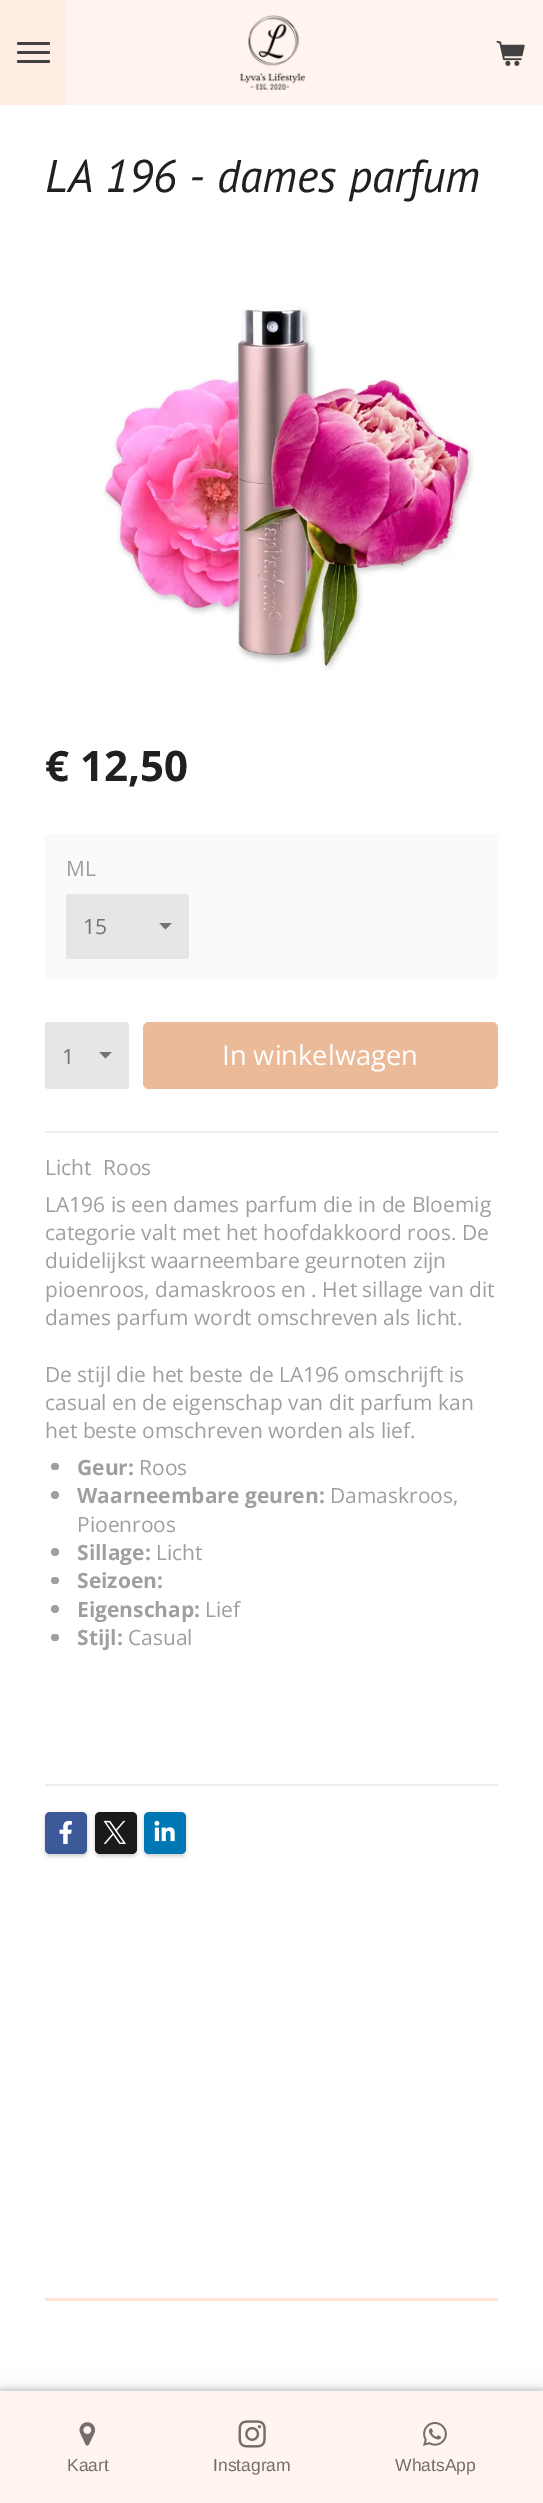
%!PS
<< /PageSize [543 2503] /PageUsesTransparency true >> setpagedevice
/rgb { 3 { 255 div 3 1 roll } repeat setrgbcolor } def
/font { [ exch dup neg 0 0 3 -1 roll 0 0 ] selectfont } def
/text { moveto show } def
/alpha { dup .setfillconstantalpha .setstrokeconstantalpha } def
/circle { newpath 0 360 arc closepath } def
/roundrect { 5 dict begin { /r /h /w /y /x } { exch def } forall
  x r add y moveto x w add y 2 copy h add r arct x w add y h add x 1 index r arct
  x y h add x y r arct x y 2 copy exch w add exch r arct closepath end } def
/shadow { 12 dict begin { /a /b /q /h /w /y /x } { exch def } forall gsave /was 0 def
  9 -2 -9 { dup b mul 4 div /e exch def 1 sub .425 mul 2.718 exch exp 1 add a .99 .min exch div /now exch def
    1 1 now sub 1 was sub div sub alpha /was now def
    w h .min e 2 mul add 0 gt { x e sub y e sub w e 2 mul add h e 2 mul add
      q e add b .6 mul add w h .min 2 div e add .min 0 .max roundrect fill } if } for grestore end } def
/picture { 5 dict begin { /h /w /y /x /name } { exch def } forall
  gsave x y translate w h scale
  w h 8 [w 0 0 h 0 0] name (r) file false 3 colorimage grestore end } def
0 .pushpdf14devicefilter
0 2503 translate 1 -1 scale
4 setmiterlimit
255 255 255 rgb
0 0 543 2503 rectfill
255 237 228 rgb
0 0 66 105 rectfill
66 66 66 rgb
17 51 33 3 1.5 roundrect fill
17 42 33 3 1.5 roundrect fill
17 60 33 3 1.5 roundrect fill
255 244 238 rgb
66 0 477 105 rectfill
(img_01.rgb) 496 40 29 26 picture
(img_02.rgb) 239 15 66 75 picture
(img_03.rgb) 103 305 371 366 picture
250 250 250 rgb
45 834 453 146 5 roundrect fill
230 230 230 rgb
66 894 123 65 3 roundrect fill
gsave
159 923 14 7 rectclip
115 115 115 rgb
165.5 929.5 moveto -6.5 -7 rlineto 13 0 rlineto closepath fill
grestore
45 1022 84 67 3 roundrect fill
gsave
99 1052 14 7 rectclip
115 115 115 rgb
105.5 1058.5 moveto -6.5 -7 rlineto 13 0 rlineto closepath fill
grestore
235 186 153 rgb
143 1022 355 67 6 roundrect fill
236 236 236 rgb
45 1131 453 2 rectfill
159 159 159 rgb
51 1463 8 7 3.5 roundrect fill
55 1495 4 circle fill
55 1552 4 circle fill
51 1577 8 7 3.5 roundrect fill
55 1609 4 circle fill
51 1634 8 7 3.5 roundrect fill
236 236 236 rgb
45 1784 453 2 rectfill
0 0 0 rgb
45 1814 42 42 5 2 0.2 shadow
59 89 152 rgb
45 1812 42 42 5 roundrect fill
(img_04.rgb) 59 1820 13 24 picture
0 0 0 rgb
95 1814 42 42 5 2 0.2 shadow
26 26 26 rgb
95 1812 42 42 5 roundrect fill
(img_05.rgb) 103 1820 23 24 picture
0 0 0 rgb
144 1814 42 42 5 2 0.2 shadow
0 119 181 rgb
144 1812 42 42 5 roundrect fill
(img_06.rgb) 154 1820 21 22 picture
255 228 213 rgb
45 2298 453 3 rectfill
0 0 0 rgb
0 2388 543 113 0 1.5 0.1 shadow
0 2388 543 113 0 7.5 0.1 shadow
255 244 238 rgb
0 2391 543 112 rectfill
(img_07.rgb) 79 2422 17 24 picture
(img_08.rgb) 238 2420 28 28 picture
(img_09.rgb) 423 2422 24 24 picture
/PTSans-Italic 45.75 font
32 32 32 rgb
(LA 196 - dames parfum) 45 192 text
/OpenSans-Bold 42 font
(€ 12,50) 45 781 text
/OpenSans-Regular 21 font
159 159 159 rgb
(ML) 66 876 text
115 115 115 rgb
(15) 83 934 text
(1) 62 1064 text
/OpenSans-Regular 27.25 font
255 255 255 rgb
(In winkelwagen) 222 1065 text
/OpenSans-Regular 21 font
159 159 159 rgb
(Licht) 45 1175 text
(Roos) 103 1175 text
(LA196 is een dames parfum die in de Bloemig) 45 1212 text
(categorie valt met het hoofdakkoord roos. De) 45 1240 text
(duidelijkst waarneembare geurnoten zijn) 45 1268 text
(pioenroos, damaskroos en . Het sillage van dit) 45 1297 text
(dames parfum wordt omschreven als licht.) 45 1325 text
(De stijl die het beste de LA196 omschrijft is) 45 1382 text
(casual en de eigenschap van dit parfum kan) 45 1410 text
(het beste omschreven worden als lief.) 45 1438 text
/OpenSans-Bold 21 font
(Geur:) 77 1475 text
/OpenSans-Regular 21 font
(Roos) 139 1475 text
/OpenSans-Bold 21 font
(Waarneembare geuren:) 77 1503 text
/OpenSans-Regular 21 font
(Damaskroos,) 330 1503 text
(Pioenroos) 77 1532 text
/OpenSans-Bold 21 font
(Sillage:) 77 1560 text
/OpenSans-Regular 21 font
(Licht) 156 1560 text
/OpenSans-Bold 21 font
(Seizoen:) 77 1588 text
(Eigenschap:) 77 1617 text
/OpenSans-Regular 21 font
(Lief) 205 1617 text
/OpenSans-Bold 21 font
(Stijl:) 77 1645 text
/OpenSans-Regular 21 font
(Casual) 128 1645 text
/LiberationSans-Regular 17.5 font
115 110 107 rgb
(Kaart) 67 2471 text
(Instagram) 213 2471 text
(WhatsApp) 395 2471 text
.poppdf14devicefilter showpage
